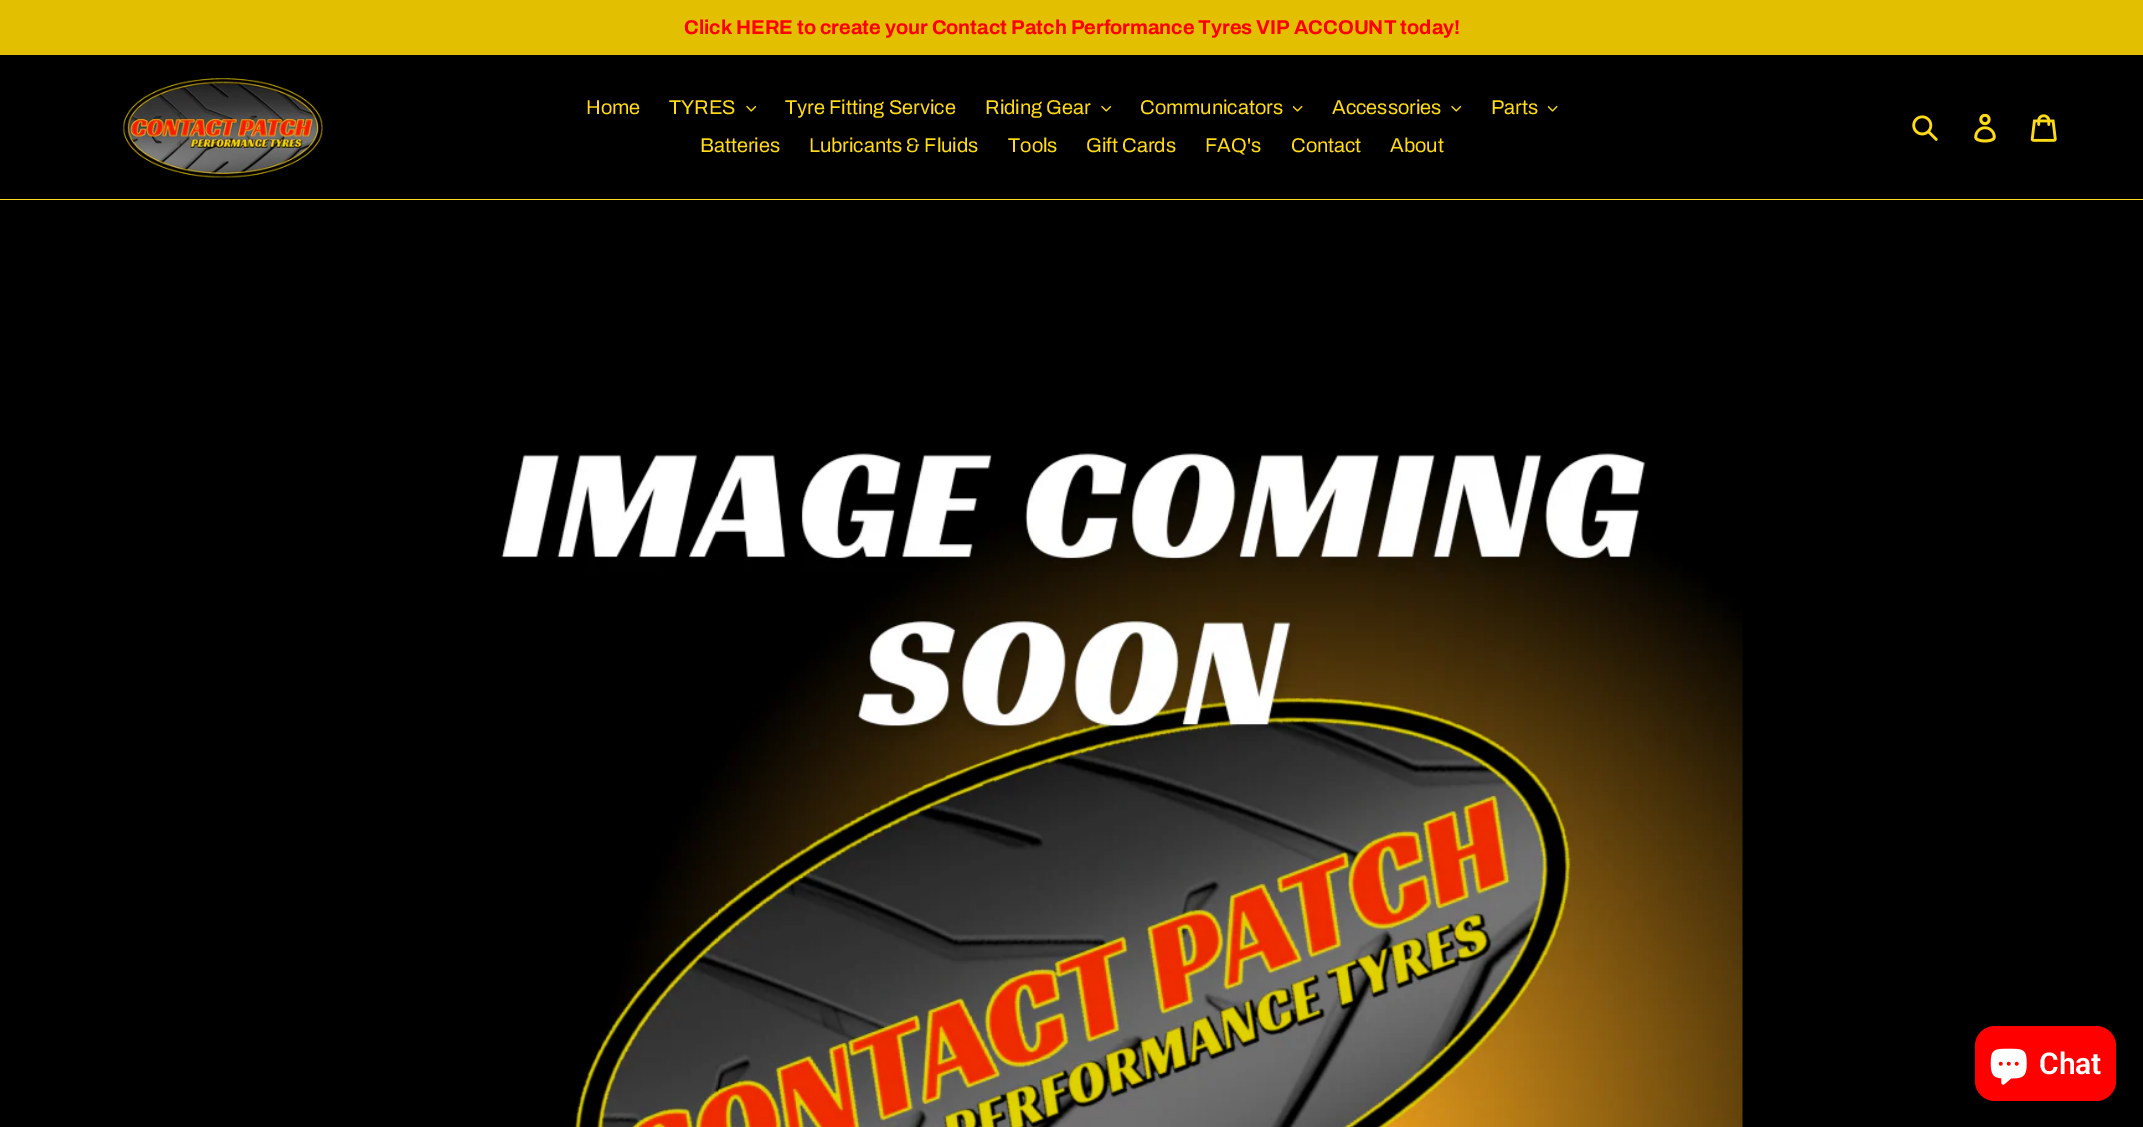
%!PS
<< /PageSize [2143 1127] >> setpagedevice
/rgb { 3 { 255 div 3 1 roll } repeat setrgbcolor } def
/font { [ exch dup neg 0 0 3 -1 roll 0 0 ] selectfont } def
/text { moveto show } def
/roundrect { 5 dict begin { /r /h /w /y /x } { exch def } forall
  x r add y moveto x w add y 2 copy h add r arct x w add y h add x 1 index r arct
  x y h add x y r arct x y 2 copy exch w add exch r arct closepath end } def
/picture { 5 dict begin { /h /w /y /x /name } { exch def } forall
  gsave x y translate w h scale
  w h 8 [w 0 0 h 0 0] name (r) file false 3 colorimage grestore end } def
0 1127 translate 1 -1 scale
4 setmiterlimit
0 0 0 rgb
0 0 2143 1127 rectfill
226 191 0 rgb
0 0 2143 55 rectfill
255 219 21 rgb
0 199 2143 1 rectfill
(img_01.rgb) 123 78 200 100 picture
(img_02.rgb) 746 105 10 7 picture
(img_02.rgb) 1101 105 10 7 picture
(img_03.rgb) 1293 105 10 7 picture
(img_02.rgb) 1451 105 10 7 picture
(img_03.rgb) 1548 105 10 7 picture
(img_04.rgb) 1912 115 26 26 picture
(img_05.rgb) 1974 114 22 29 picture
(img_06.rgb) 2030 114 27 28 picture
(img_07.rgb) 501 453 1242 674 picture
255 0 0 rgb
1975 1026 141 75 20 roundrect fill
(img_08.rgb) 1990 1048 37 37 picture
/Archivo-Bold 20 font
(Click HERE to create your Contact Patch Performance Tyres VIP ACCOUNT today!) 684 34 text
/Archivo-Regular 20 font
255 219 21 rgb
(Home) 586 114 text
(TYRES) 669 114 text
(Tyre Fitting Service) 785 114 text
(Riding Gear) 985 114 text
(Communicators) 1140 114 text
(Accessories) 1332 114 text
(Parts) 1491 114 text
(Batteries) 700 152 text
(Lubricants & Fluids) 809 152 text
(Tools) 1008 152 text
(Gift Cards) 1086 152 text
(FAQ's) 1205 152 text
(Contact) 1291 152 text
(About) 1390 152 text
/Roboto-SemiBold 30 font
255 255 255 rgb
(Chat) 2039 1074 text
showpage
